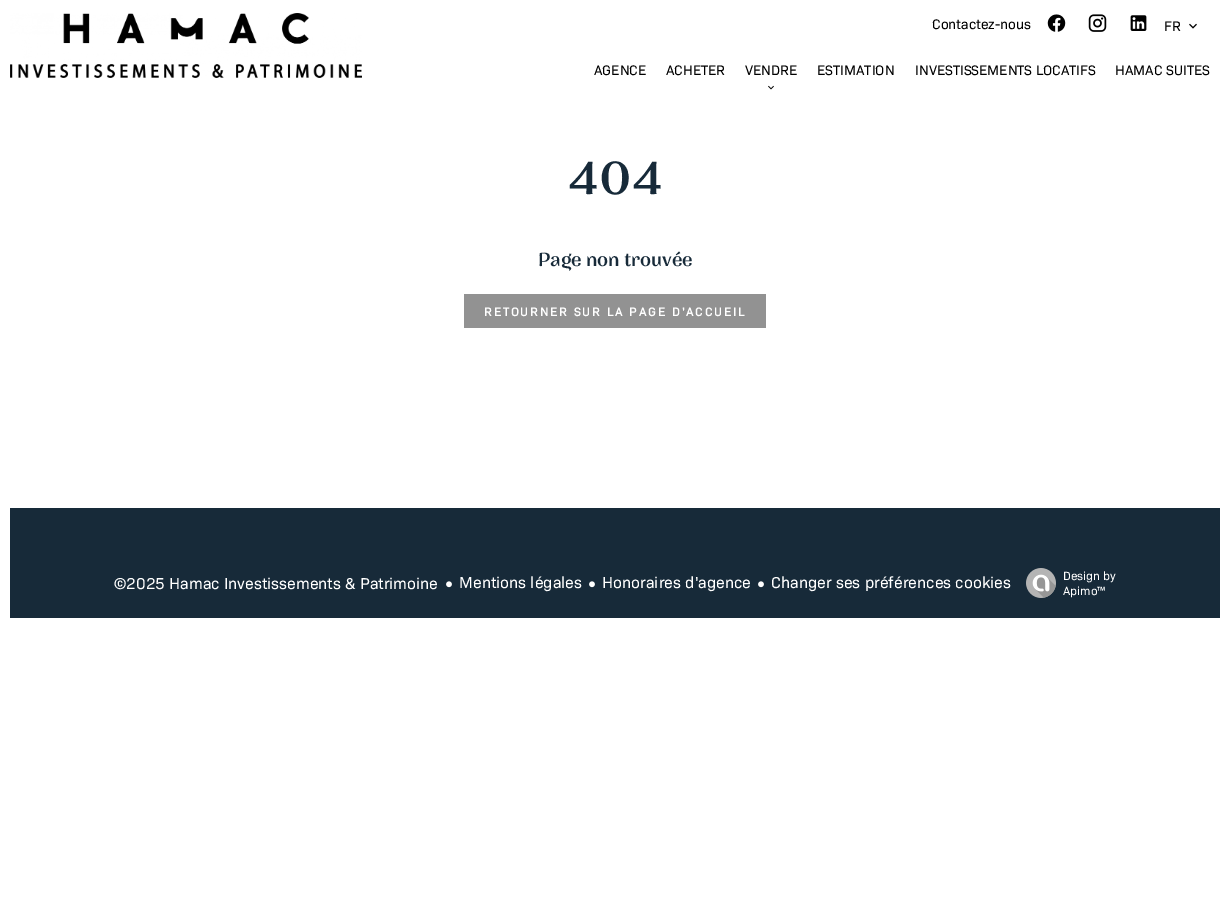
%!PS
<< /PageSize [1230 905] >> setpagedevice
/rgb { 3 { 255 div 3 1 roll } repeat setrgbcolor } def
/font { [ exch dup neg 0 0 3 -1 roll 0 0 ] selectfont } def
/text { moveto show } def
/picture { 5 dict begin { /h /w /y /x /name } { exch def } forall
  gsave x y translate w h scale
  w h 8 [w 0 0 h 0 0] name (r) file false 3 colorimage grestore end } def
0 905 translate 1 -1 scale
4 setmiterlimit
255 255 255 rgb
0 0 1230 905 rectfill
(img_01.rgb) 10 13 352 65 picture
(img_02.rgb) 1047 14 19 18 picture
(img_03.rgb) 1088 14 19 18 picture
(img_04.rgb) 1130 15 17 16 picture
(img_05.rgb) 1189 23 8 6 picture
(img_06.rgb) 768 85 6 5 picture
146 146 146 rgb
464 294 302 34 rectfill
23 42 57 rgb
10 508 1210 110 rectfill
(img_07.rgb) 446 581 6 7 picture
(img_07.rgb) 589 581 6 7 picture
(img_07.rgb) 758 581 6 7 picture
(img_08.rgb) 1026 568 30 30 picture
/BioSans-Regular 14 font
0 0 0 rgb
(Contactez-nous) 932 29 text
(FR) 1164 31 text
(AGENCE) 594 75 text
(ACHETER) 666 75 text
(VENDRE) 745 75 text
(ESTIMATION) 817 75 text
(INVESTISSEMENTS LOCATIFS) 915 75 text
(HAMAC SUITES) 1115 75 text
/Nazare-Regular 46 font
23 42 57 rgb
(404) 568 194 text
/Nazare-Regular 18.75 font
(Page non trouvée) 538 266 text
/BioSans-Bold 12 font
255 255 255 rgb
484 316 moveto 2 0 (RETOURNER SUR LA PAGE D'ACCUEIL) ashow
/BioSans-Regular 16 font
(©2025 Hamac Investissements & Patrimoine) 114 589 text
(Mentions légales) 459 588 text
(Honoraires d'agence) 602 588 text
(Changer ses préférences cookies) 771 588 text
/BioSans-Regular 12 font
(Design by) 1063 580 text
(Apimo™) 1063 595 text
showpage
